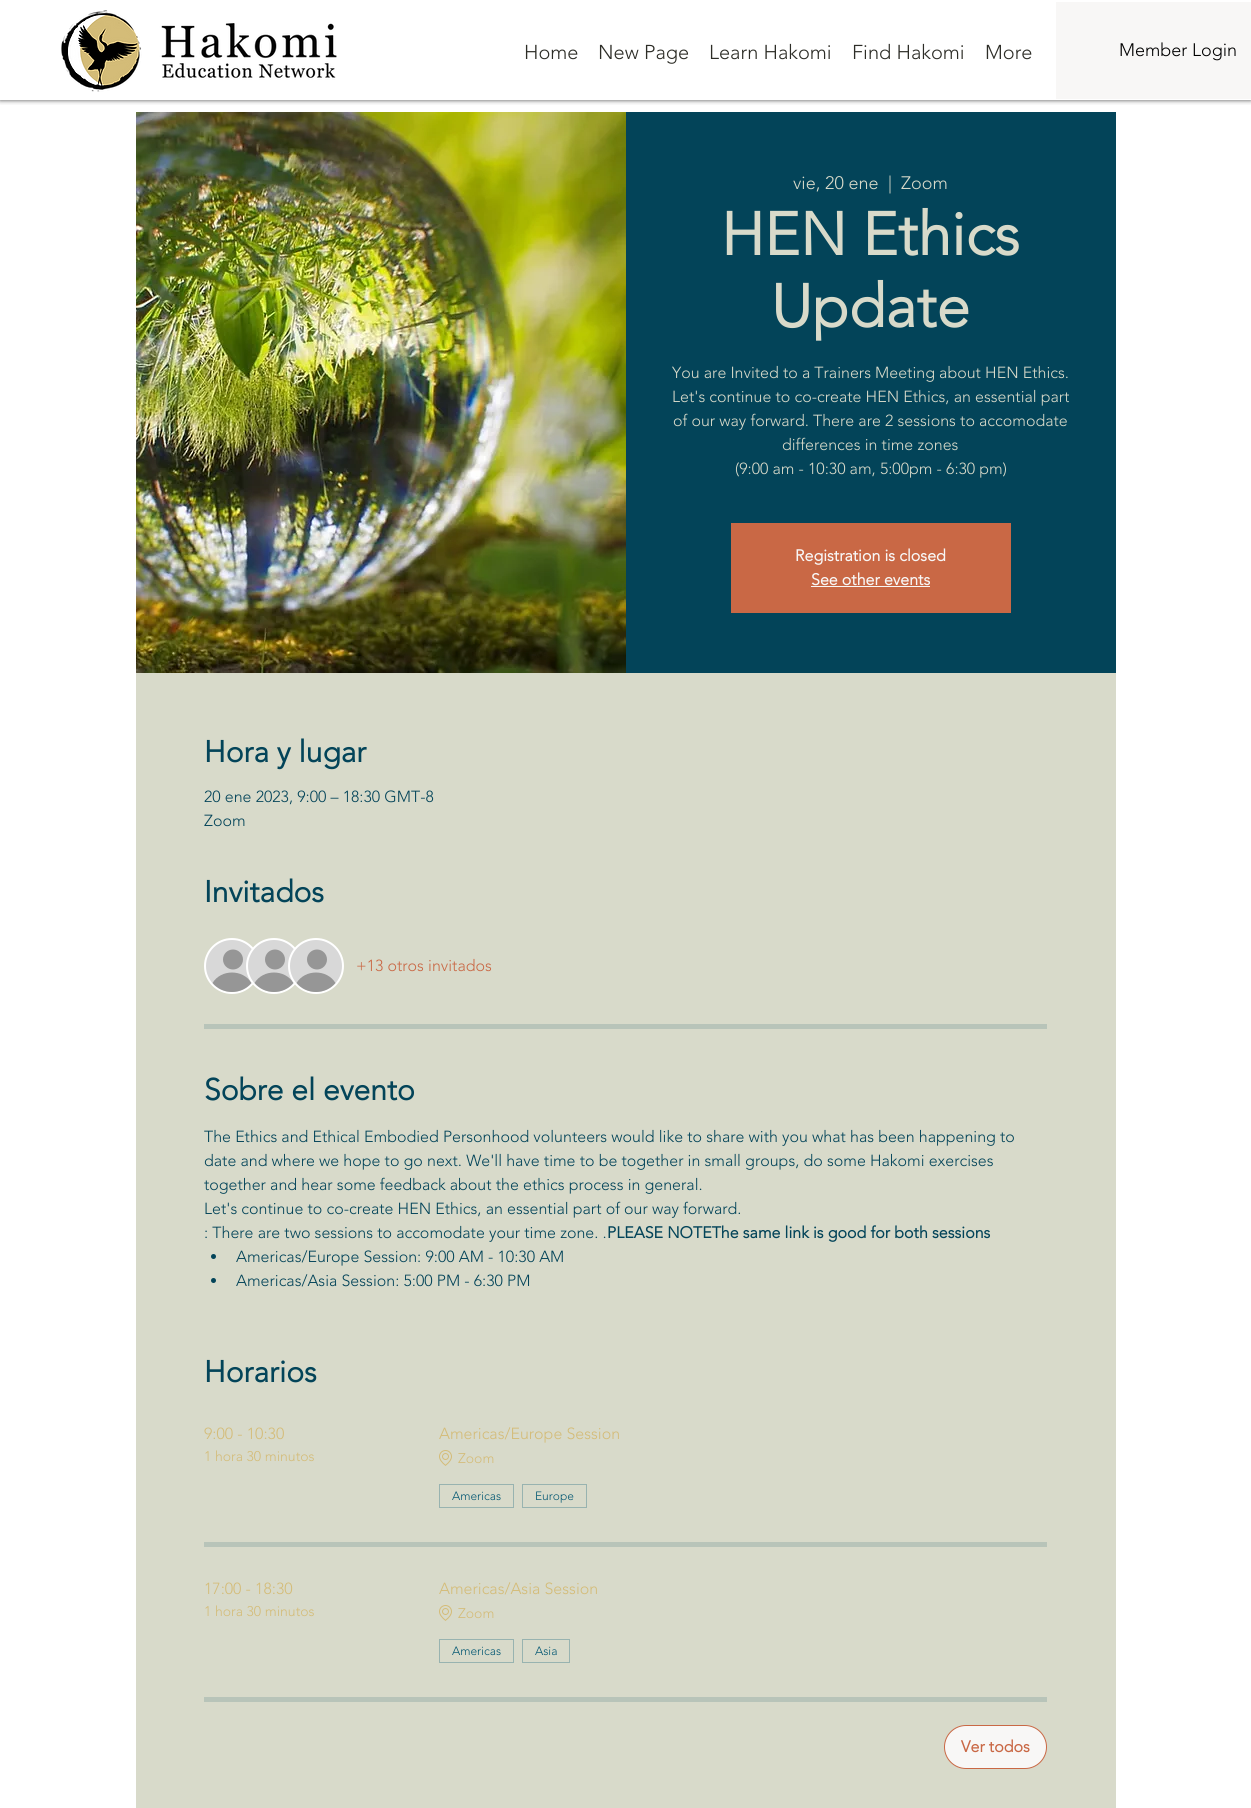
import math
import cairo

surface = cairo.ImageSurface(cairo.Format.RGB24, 1251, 1808)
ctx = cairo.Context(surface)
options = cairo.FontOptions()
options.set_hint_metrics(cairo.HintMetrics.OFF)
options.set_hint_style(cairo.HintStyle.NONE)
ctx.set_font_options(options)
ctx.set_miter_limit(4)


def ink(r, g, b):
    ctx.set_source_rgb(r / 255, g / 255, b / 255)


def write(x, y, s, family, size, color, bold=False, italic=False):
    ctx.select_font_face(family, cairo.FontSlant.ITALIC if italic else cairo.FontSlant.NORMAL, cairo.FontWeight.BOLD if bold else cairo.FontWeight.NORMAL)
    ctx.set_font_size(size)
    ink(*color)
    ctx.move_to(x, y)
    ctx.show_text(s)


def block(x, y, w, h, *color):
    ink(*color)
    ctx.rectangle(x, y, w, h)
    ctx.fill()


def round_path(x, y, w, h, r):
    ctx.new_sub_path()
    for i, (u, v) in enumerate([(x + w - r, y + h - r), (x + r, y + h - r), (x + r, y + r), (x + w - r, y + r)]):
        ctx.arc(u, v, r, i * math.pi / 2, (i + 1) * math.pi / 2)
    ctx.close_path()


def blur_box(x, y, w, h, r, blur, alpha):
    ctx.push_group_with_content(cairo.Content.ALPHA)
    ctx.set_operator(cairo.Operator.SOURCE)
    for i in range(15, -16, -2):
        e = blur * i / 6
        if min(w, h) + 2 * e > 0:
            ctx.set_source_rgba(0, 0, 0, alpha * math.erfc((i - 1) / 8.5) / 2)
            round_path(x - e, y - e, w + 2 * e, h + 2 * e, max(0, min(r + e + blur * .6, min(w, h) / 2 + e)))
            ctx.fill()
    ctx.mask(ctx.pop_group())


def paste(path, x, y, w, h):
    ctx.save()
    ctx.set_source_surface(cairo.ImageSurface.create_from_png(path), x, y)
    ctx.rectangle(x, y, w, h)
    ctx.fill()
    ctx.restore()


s1 = dict(family="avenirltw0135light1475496 Light", size=20, color=(45, 45, 39))
s2 = dict(family="avenirltw0135light1475496 Light", size=18, color=(0, 0, 0))
s3 = dict(family="avenirltw0135light1475496 Light", size=18, color=(216, 218, 202))
s4 = dict(family="avenirltw0135light1475496", size=60, color=(216, 218, 202), bold=True)
s5 = dict(family="avenirltw0135light1475496 Light", size=16, color=(216, 218, 202))
s6 = dict(family="avenirltw0135light1475496", size=16, color=(248, 247, 246), bold=True)
s7 = dict(family="avenirltw0135light1475496", size=30, color=(3, 68, 89), bold=True)
s8 = dict(family="avenirltw0135light1475496 Light", size=16, color=(3, 68, 89))
s9 = dict(family="avenirltw0135light1475496 Light", size=16, color=(201, 104, 69))
s10 = dict(family="avenirltw0135light1475496", size=16, color=(3, 68, 89), bold=True)
s11 = dict(family="avenirltw0135light1475496 Light", size=16, color=(212, 188, 120))
s12 = dict(family="avenirltw0135light1475496 Light", size=14, color=(212, 188, 120))
s13 = dict(family="avenirltw0135light1475496 Light", size=12, color=(3, 87, 114))
s14 = dict(family="avenirltw0135light1475496", size=16, color=(201, 104, 69), bold=True)

ink(255, 255, 255)
ctx.paint()
ctx.save()
ctx.rectangle(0, 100, 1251, 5)
ctx.clip()
ink(0, 0, 0)
blur_box(0, 0, 1251, 100, 0, 2.5, 0.7)
ctx.restore()
paste("pic1.png", 61, 10, 276, 82)
write(524, 59, "Home", **s1)
write(598, 59, "New Page", **s1)
write(709, 59, "Learn Hakomi", **s1)
write(852, 59, "Find Hakomi", **s1)
write(985, 59, "More", **s1)
block(1056, 2, 195, 97, 248, 247, 246)
write(1119, 56, "Member Login", **s2)
paste("pic2.png", 136, 112, 490, 561)
block(626, 112, 490, 561, 3, 68, 89)
write(793, 189, "vie, 20 ene", **s3)
write(888, 189, "|", **s3)
write(901, 189, "Zoom", **s3)
write(721, 255, "HEN Ethics", **s4)
write(771, 327, "Update", **s4)
write(672, 378, "You are Invited to a Trainers Meeting about HEN Ethics.", **s5)
write(672, 402, "Let's continue to co-create HEN Ethics, an essential part", **s5)
write(673, 426, "of our way forward. There are 2 sessions to accomodate", **s5)
write(782, 450, "differences in time zones", **s5)
write(735, 474, "(9:00 am - 10:30 am, 5:00pm - 6:30 pm)", **s5)
block(731, 523, 280, 90, 201, 104, 69)
write(795, 561, "Registration is closed", **s6)
write(811, 585, "See other events", **s6)
block(811, 586, 119, 1, 248, 247, 246)
block(136, 673, 980, 1135, 216, 218, 202)
write(204, 762, "Hora y lugar", **s7)
write(204, 802, "20 ene 2023, 9:00 – 18:30 GMT-8", **s8)
write(204, 826, "Zoom", **s8)
write(204, 902, "Invitados", **s7)
ink(216, 216, 216)
ctx.new_path()
ctx.arc(232, 966, 27, 0, 2 * math.pi)
ctx.fill_preserve()
ink(255, 255, 255)
ctx.stroke()
ink(150, 150, 150)
ctx.arc(233, 959.5, 10, 0, 2 * math.pi)
ctx.fill()
ctx.new_path()
ctx.move_to(251.5, 983)
ctx.curve_to(241.5, 995, 222.5, 995, 212.5, 983)
ctx.curve_to(221, 969, 243, 969, 251.5, 983)
ctx.close_path()
ctx.fill()
ink(216, 216, 216)
ctx.arc(274, 966, 27, 0, 2 * math.pi)
ctx.fill_preserve()
ink(255, 255, 255)
ctx.stroke()
ink(150, 150, 150)
ctx.arc(275, 959.5, 10, 0, 2 * math.pi)
ctx.fill()
ctx.new_path()
ctx.move_to(293.5, 983)
ctx.curve_to(283.5, 995, 264.5, 995, 254.5, 983)
ctx.curve_to(263, 969, 285, 969, 293.5, 983)
ctx.close_path()
ctx.fill()
ink(216, 216, 216)
ctx.arc(316, 966, 27, 0, 2 * math.pi)
ctx.fill_preserve()
ink(255, 255, 255)
ctx.stroke()
ink(150, 150, 150)
ctx.arc(317, 959.5, 10, 0, 2 * math.pi)
ctx.fill()
ctx.new_path()
ctx.move_to(335.5, 983)
ctx.curve_to(325.5, 995, 306.5, 995, 296.5, 983)
ctx.curve_to(305, 969, 327, 969, 335.5, 983)
ctx.close_path()
ctx.fill()
write(356, 971, "+13 otros invitados", **s9)
block(204, 1024, 843, 5, 184, 196, 185)
write(204, 1100, "Sobre el evento", **s7)
write(204, 1142, "The Ethics and Ethical Embodied Personhood volunteers would like to share with you what has been happening to", **s8)
write(204, 1166, "date and where we hope to go next. We'll have time to be together in small groups, do some Hakomi exercises", **s8)
write(204, 1190, "together and hear some feedback about the ethics process in general.", **s8)
write(204, 1214, "Let's continue to co-create HEN Ethics, an essential part of our way forward.", **s8)
write(204, 1238, ": There are two sessions to accomodate your time zone. .", **s8)
write(607, 1238, "PLEASE NOTEThe same link is good for both sessions", **s10)
ctx.new_path()
ctx.arc(213.5, 1256.5, 2.5, 0, 2 * math.pi)
ctx.fill()
write(236, 1262, "Americas/Europe Session: 9:00 AM - 10:30 AM", **s8)
ctx.new_path()
ctx.arc(213.5, 1280.5, 2.5, 0, 2 * math.pi)
ctx.fill()
write(236, 1286, "Americas/Asia Session: 5:00 PM - 6:30 PM", **s8)
write(204, 1382, "Horarios", **s7)
write(204, 1439, "9:00 - 10:30", **s11)
write(204, 1461, "1 hora 30 minutos", **s12)
write(439, 1439, "Americas/Europe Session", **s11)
paste("pic3.png", 439, 1450, 13, 16)
write(458, 1463, "Zoom", **s12)
ctx.rectangle(439.5, 1484.5, 74, 23)
ink(152, 179, 176)
ctx.set_line_width(1)
ctx.stroke()
write(452, 1500, "Americas", **s13)
ctx.rectangle(522.5, 1484.5, 64, 23)
ink(152, 179, 176)
ctx.stroke()
write(535, 1500, "Europe", **s13)
block(204, 1542, 843, 5, 184, 196, 185)
write(204, 1594, "17:00 - 18:30", **s11)
write(204, 1616, "1 hora 30 minutos", **s12)
write(439, 1594, "Americas/Asia Session", **s11)
paste("pic3.png", 439, 1605, 13, 16)
write(458, 1618, "Zoom", **s12)
ctx.rectangle(439.5, 1639.5, 74, 23)
ink(152, 179, 176)
ctx.stroke()
write(452, 1655, "Americas", **s13)
ctx.rectangle(522.5, 1639.5, 47, 23)
ink(152, 179, 176)
ctx.stroke()
write(535, 1655, "Asia", **s13)
block(204, 1697, 843, 5, 184, 196, 185)
ink(248, 247, 246)
round_path(944.5, 1725.5, 102, 43, 21.5)
ctx.fill_preserve()
ink(201, 104, 69)
ctx.stroke()
write(961, 1752, "Ver todos", **s14)
surface.write_to_png("screenshot.png")
